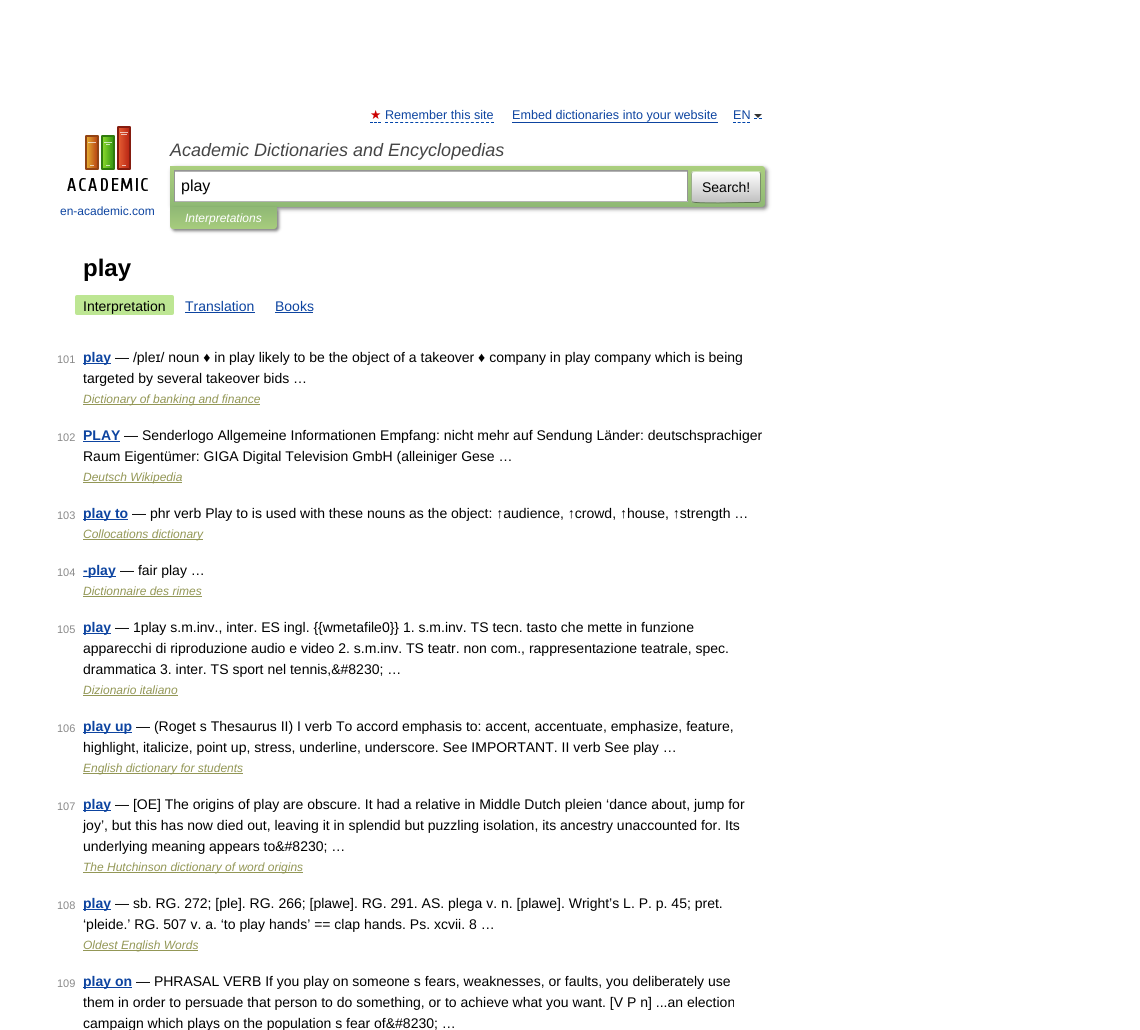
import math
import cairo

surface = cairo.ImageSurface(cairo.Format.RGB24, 1140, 1030)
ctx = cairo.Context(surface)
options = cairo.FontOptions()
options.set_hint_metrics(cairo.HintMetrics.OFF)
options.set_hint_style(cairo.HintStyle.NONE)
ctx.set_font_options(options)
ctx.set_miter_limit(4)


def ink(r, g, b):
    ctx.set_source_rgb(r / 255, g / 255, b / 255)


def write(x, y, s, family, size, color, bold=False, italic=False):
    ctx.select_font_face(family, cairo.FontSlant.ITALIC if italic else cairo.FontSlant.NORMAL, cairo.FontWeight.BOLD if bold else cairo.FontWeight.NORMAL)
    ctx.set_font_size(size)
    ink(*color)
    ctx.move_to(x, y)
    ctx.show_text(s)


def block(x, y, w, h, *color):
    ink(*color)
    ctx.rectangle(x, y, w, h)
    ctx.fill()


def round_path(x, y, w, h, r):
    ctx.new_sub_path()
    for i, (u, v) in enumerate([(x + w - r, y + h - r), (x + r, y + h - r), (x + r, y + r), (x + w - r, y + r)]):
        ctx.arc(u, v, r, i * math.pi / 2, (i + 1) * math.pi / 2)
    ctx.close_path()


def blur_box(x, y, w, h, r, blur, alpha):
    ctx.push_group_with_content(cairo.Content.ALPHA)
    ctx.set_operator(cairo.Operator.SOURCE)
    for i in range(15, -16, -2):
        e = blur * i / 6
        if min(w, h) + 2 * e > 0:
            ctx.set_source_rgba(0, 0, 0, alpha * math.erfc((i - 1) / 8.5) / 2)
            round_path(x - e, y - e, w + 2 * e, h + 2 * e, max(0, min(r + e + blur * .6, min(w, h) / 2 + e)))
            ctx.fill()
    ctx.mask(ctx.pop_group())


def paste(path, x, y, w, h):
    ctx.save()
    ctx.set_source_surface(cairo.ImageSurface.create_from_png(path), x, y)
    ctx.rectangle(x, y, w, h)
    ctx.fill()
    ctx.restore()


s1 = dict(family="DejaVu Sans", size=12.6, color=(204, 0, 0))
s2 = dict(family="Liberation Sans", size=12.6, color=(13, 68, 160))
s3 = dict(family="Liberation Sans", size=18, color=(69, 69, 69), italic=True)
s4 = dict(family="Liberation Sans", size=16, color=(0, 0, 0))
s5 = dict(family="Liberation Sans", size=14, color=(0, 0, 0))
s6 = dict(family="Liberation Sans", size=12, color=(13, 68, 160))
s7 = dict(family="Liberation Sans", size=12, color=(255, 255, 255), italic=True)
s8 = dict(family="Liberation Sans", size=24, color=(0, 0, 0), bold=True)
s9 = dict(family="Liberation Sans", size=14, color=(13, 68, 160))
s10 = dict(family="Liberation Sans", size=11, color=(137, 137, 137))
s11 = dict(family="Liberation Sans", size=14, color=(13, 68, 160), bold=True)
s12 = dict(family="Liberation Sans", size=12, color=(147, 151, 86), italic=True)

ink(255, 255, 255)
ctx.paint()
write(370, 119, "★", **s1)
ctx.new_path()
ctx.move_to(370, 122.5)
ctx.line_to(373, 122.5)
ctx.move_to(374, 122.5)
ctx.line_to(377, 122.5)
ctx.move_to(378, 122.5)
ctx.line_to(381, 122.5)
ink(0, 68, 170)
ctx.set_line_width(1)
ctx.stroke()
write(385, 119, "Remember this site", **s2)
ctx.new_path()
ctx.move_to(385, 122.5)
ctx.line_to(494, 122.5)
ink(0, 68, 170)
ctx.set_dash([3, 2.05])
ctx.stroke()
write(512, 119, "Embed dictionaries into your website", **s2)
block(512, 122, 206, 1, 13, 68, 160)
ctx.new_path()
ctx.move_to(733, 122.5)
ctx.line_to(750, 122.5)
ink(0, 68, 170)
ctx.set_dash([3, 1.67])
ctx.stroke()
ctx.new_path()
ctx.move_to(754, 118.5)
ctx.line_to(757, 118.5)
ctx.move_to(759, 118.5)
ctx.line_to(762, 118.5)
ctx.set_dash([])
ctx.stroke()
write(733, 119, "EN", **s2)
ink(51, 51, 51)
ctx.new_path()
ctx.move_to(754, 114)
ctx.line_to(762, 114)
ctx.line_to(758, 118)
ctx.close_path()
ctx.fill()
write(170, 156, "Academic Dictionaries and Encyclopedias", **s3)
ink(0, 0, 0)
blur_box(172, 168, 595, 41, 3, 2, 0.5)
gradient = cairo.LinearGradient(468, 166, 468, 207)
gradient.add_color_stop_rgba(0, 0.671, 0.812, 0.494, 1)
gradient.add_color_stop_rgba(1, 0.557, 0.722, 0.455, 1)
ctx.set_source(gradient)
ctx.new_path()
ctx.move_to(170, 166)
ctx.line_to(762, 166)
ctx.curve_to(763.5, 166, 765, 167.5, 765, 169)
ctx.line_to(765, 204)
ctx.curve_to(765, 205.5, 763.5, 207, 762, 207)
ctx.line_to(170, 207)
ctx.close_path()
ctx.fill()
block(175, 172, 512, 29, 255, 255, 255)
block(175, 171, 512, 1, 179, 179, 179)
block(174, 170, 514, 1, 148, 148, 148)
block(687, 170, 1, 32, 148, 148, 148)
block(174, 201, 514, 1, 180, 180, 180)
block(174, 170, 1, 32, 148, 148, 148)
write(181, 191, "play", **s4)
ctx.save()
round_path(691, 171, 70, 32, 3)
ctx.clip()
gradient = cairo.LinearGradient(726, 142, 726, 172)
gradient.add_color_stop_rgba(0, 1, 1, 1, 1)
gradient.add_color_stop_rgba(1, 0.757, 0.757, 0.757, 1)
ctx.set_source(gradient)
ctx.rectangle(691, 171, 70, 1)
ctx.fill()
gradient = cairo.LinearGradient(726, 172, 726, 202)
gradient.add_color_stop_rgba(0, 1, 1, 1, 1)
gradient.add_color_stop_rgba(1, 0.757, 0.757, 0.757, 1)
ctx.set_source(gradient)
ctx.rectangle(691, 172, 70, 30)
ctx.fill()
gradient = cairo.LinearGradient(726, 202, 726, 232)
gradient.add_color_stop_rgba(0, 1, 1, 1, 1)
gradient.add_color_stop_rgba(1, 0.757, 0.757, 0.757, 1)
ctx.set_source(gradient)
ctx.rectangle(691, 202, 70, 1)
ctx.fill()
ctx.restore()
ctx.new_path()
ctx.move_to(692, 172)
ctx.line_to(692.5, 172)
ctx.curve_to(694.5, 170.5, 741, 171.5, 747.5, 171.5)
ctx.line_to(758, 171.5)
ctx.line_to(760, 172)
ink(209, 228, 188)
ctx.stroke()
ctx.new_path()
ctx.move_to(760, 172)
ctx.curve_to(760, 172.5, 760.5, 173.5, 760.5, 174)
ctx.line_to(760.5, 200)
ctx.curve_to(760.5, 200.5, 760, 201.5, 760, 202)
ink(122, 142, 105)
ctx.stroke()
ctx.new_path()
ctx.move_to(760, 202)
ctx.line_to(758, 202.5)
ctx.line_to(747.5, 202.5)
ctx.curve_to(741, 202.5, 694.5, 203.5, 692.5, 202)
ctx.line_to(692, 202)
ink(93, 114, 80)
ctx.stroke()
ctx.new_path()
ctx.move_to(692, 202)
ctx.curve_to(692, 201.5, 691.5, 200.5, 691.5, 200)
ctx.line_to(691.5, 174)
ctx.curve_to(691.5, 173.5, 692, 172.5, 692, 172)
ink(154, 174, 137)
ctx.stroke()
write(702, 192, "Search!", **s5)
paste("pic1.png", 67, 126, 81, 65)
write(60, 215, "en-academic.com", **s6)
ink(0, 0, 0)
blur_box(172, 209, 107, 22, 3, 1.5, 0.5)
gradient = cairo.LinearGradient(224, 207, 224, 229)
gradient.add_color_stop_rgba(0, 0.561, 0.722, 0.459, 1)
gradient.add_color_stop_rgba(1, 0.655, 0.8, 0.49, 1)
ctx.set_source(gradient)
ctx.new_path()
ctx.move_to(170, 207)
ctx.line_to(277, 207)
ctx.line_to(277, 226)
ctx.curve_to(277, 227.5, 275.5, 229, 274, 229)
ctx.line_to(173, 229)
ctx.curve_to(171.5, 229, 170, 227.5, 170, 226)
ctx.close_path()
ctx.fill()
write(185, 222, "Interpretations", **s7)
write(83, 276, "play", **s8)
ink(189, 230, 147)
round_path(75, 295, 99, 20, 2)
ctx.fill()
write(83, 311, "Interpretation", **s5)
write(185, 311, "Translation", **s9)
block(185, 312, 70, 1, 13, 68, 160)
write(275, 311, "Books", **s9)
block(275, 312, 38, 1, 13, 68, 160)
write(57, 363, "101", **s10)
block(83, 363, 28, 1, 13, 68, 160)
write(83, 362, "play", **s11)
write(115, 362, "— /pleɪ/ noun ♦ in play likely to be the object of a takeover ♦ company in play company which is being", **s5)
write(83, 383, "targeted by several takeover bids …", **s5)
block(83, 404, 177, 1, 147, 151, 86)
write(83, 403, "Dictionary of banking and finance", **s12)
write(57, 441, "102", **s10)
write(83, 440, "PLAY", **s11)
block(83, 441, 37, 1, 13, 68, 160)
write(124, 440, "— Senderlogo Allgemeine Informationen Empfang: nicht mehr auf Sendung Länder: deutschsprachiger", **s5)
write(83, 461, "Raum Eigentümer: GIGA Digital Television GmbH (alleiniger Gese …", **s5)
block(83, 482, 99, 1, 147, 151, 86)
write(83, 481, "Deutsch Wikipedia", **s12)
write(57, 519, "103", **s10)
block(83, 519, 45, 1, 13, 68, 160)
write(83, 518, "play to", **s11)
write(132, 518, "— phr verb Play to is used with these nouns as the object: ↑audience, ↑crowd, ↑house, ↑strength …", **s5)
block(83, 539, 120, 1, 147, 151, 86)
write(83, 538, "Collocations dictionary", **s12)
write(57, 576, "104", **s10)
block(83, 576, 33, 1, 13, 68, 160)
write(83, 575, "-play", **s11)
write(120, 575, "— fair play …", **s5)
write(83, 595, "Dictionnaire des rimes", **s12)
block(83, 596, 119, 1, 147, 151, 86)
write(57, 633, "105", **s10)
block(83, 633, 28, 1, 13, 68, 160)
write(83, 632, "play", **s11)
write(115, 632, "— 1play s.m.inv., inter. ES ingl. {{wmetafile0}} 1. s.m.inv. TS tecn. tasto che mette in funzione", **s5)
write(83, 653, "apparecchi di riproduzione audio e video 2. s.m.inv. TS teatr. non com., rappresentazione teatrale, spec.", **s5)
write(83, 674, "drammatica 3. inter. TS sport nel tennis,&#8230; …", **s5)
write(83, 694, "Dizionario italiano", **s12)
block(83, 695, 95, 1, 147, 151, 86)
write(57, 732, "106", **s10)
block(83, 732, 49, 1, 13, 68, 160)
write(83, 731, "play up", **s11)
write(136, 731, "— (Roget s Thesaurus II) I verb To accord emphasis to: accent, accentuate, emphasize, feature,", **s5)
write(83, 752, "highlight, italicize, point up, stress, underline, underscore. See IMPORTANT. II verb See play …", **s5)
block(83, 773, 160, 1, 147, 151, 86)
write(83, 772, "English dictionary for students", **s12)
write(57, 810, "107", **s10)
block(83, 810, 28, 1, 13, 68, 160)
write(83, 809, "play", **s11)
write(115, 809, "— [OE] The origins of play are obscure. It had a relative in Middle Dutch pleien ‘dance about, jump for", **s5)
write(83, 830, "joy’, but this has now died out, leaving it in splendid but puzzling isolation, its ancestry unaccounted for. Its", **s5)
write(83, 851, "underlying meaning appears to&#8230; …", **s5)
block(83, 872, 220, 1, 147, 151, 86)
write(83, 871, "The Hutchinson dictionary of word origins", **s12)
write(57, 909, "108", **s10)
block(83, 909, 28, 1, 13, 68, 160)
write(83, 908, "play", **s11)
write(115, 908, "— sb. RG. 272; [ple]. RG. 266; [plawe]. RG. 291. AS. plega v. n. [plawe]. Wright’s L. P. p. 45; pret.", **s5)
write(83, 929, "‘pleide.’ RG. 507 v. a. ‘to play hands’ == clap hands. Ps. xcvii. 8 …", **s5)
block(83, 950, 115, 1, 147, 151, 86)
write(83, 949, "Oldest English Words", **s12)
write(57, 987, "109", **s10)
block(83, 987, 49, 1, 13, 68, 160)
write(83, 986, "play on", **s11)
write(136, 986, "— PHRASAL VERB If you play on someone s fears, weaknesses, or faults, you deliberately use", **s5)
write(83, 1007, "them in order to persuade that person to do something, or to achieve what you want. [V P n] ...an election", **s5)
write(83, 1028, "campaign which plays on the population s fear of&#8230; …", **s5)
surface.write_to_png("screenshot.png")
